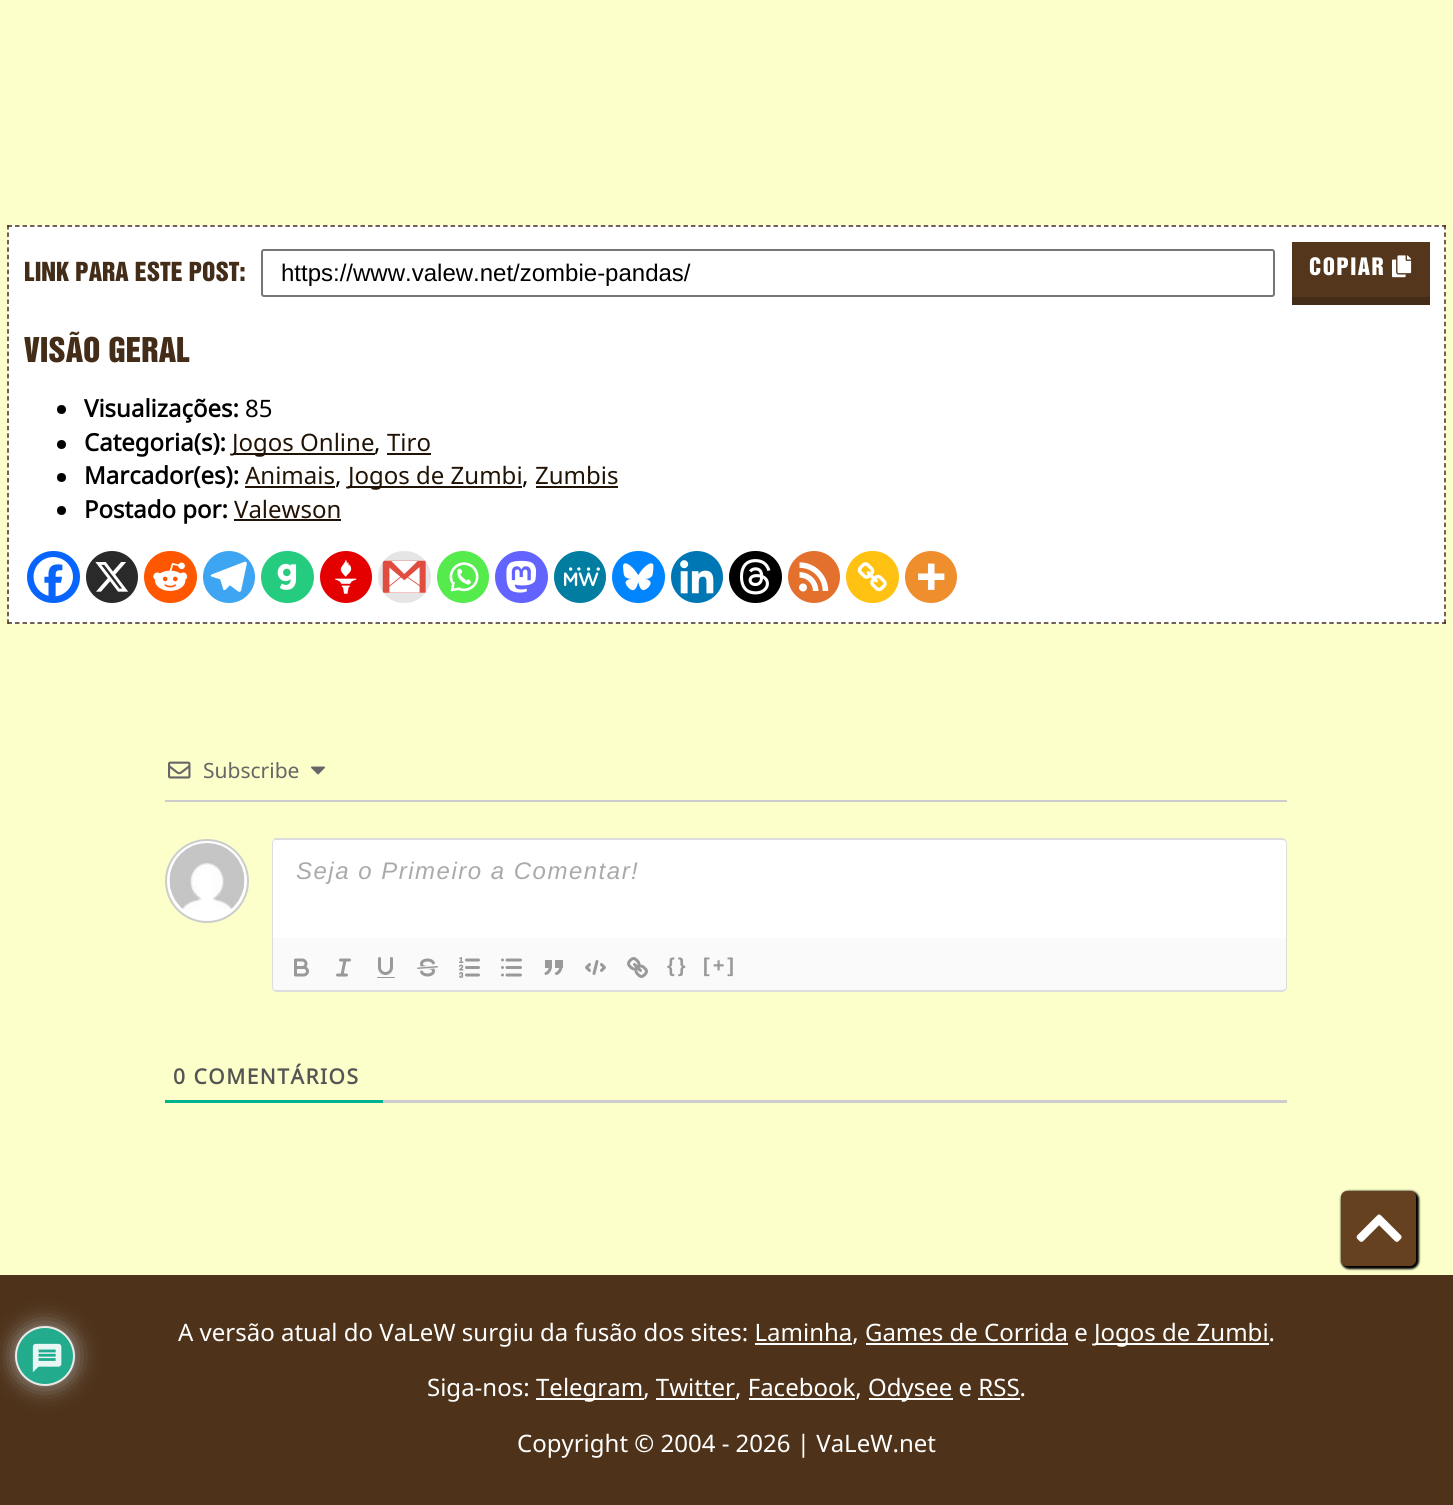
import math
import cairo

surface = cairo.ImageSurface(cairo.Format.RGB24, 1453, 1505)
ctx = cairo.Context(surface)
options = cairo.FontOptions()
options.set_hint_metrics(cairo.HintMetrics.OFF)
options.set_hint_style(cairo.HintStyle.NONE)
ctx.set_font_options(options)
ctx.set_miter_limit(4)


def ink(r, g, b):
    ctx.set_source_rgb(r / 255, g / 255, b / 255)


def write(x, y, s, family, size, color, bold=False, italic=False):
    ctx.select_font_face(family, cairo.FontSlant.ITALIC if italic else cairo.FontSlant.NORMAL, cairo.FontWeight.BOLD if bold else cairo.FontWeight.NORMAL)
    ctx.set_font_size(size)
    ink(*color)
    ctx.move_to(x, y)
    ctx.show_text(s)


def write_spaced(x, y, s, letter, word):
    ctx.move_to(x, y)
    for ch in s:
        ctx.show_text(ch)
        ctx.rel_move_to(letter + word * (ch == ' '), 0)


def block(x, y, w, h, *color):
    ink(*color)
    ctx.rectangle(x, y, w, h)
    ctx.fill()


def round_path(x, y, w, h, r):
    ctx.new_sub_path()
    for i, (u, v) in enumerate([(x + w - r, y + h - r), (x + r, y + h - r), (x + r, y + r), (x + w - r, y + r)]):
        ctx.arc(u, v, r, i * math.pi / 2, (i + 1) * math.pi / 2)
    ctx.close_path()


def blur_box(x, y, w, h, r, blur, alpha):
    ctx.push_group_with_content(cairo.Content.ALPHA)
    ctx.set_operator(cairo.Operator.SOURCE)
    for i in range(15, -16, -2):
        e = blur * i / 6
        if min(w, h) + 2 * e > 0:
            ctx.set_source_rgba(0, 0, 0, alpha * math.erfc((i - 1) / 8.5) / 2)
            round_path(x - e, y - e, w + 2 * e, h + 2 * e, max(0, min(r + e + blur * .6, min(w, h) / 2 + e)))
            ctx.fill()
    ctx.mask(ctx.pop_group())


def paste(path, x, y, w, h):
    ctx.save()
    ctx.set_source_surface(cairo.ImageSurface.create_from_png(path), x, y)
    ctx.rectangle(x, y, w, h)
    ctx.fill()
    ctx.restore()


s1 = dict(family="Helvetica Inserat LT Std", size=24, color=(68, 45, 24))
s2 = dict(family="Liberation Sans", size=24, color=(0, 0, 0))
s3 = dict(family="Helvetica Inserat LT Std", size=31.25, color=(68, 45, 24))
s4 = dict(family="Noto Sans", size=24, color=(0, 0, 0), bold=True)
s5 = dict(family="Noto Sans", size=24, color=(0, 0, 0))
s6 = dict(family="Noto Sans", size=24, color=(33, 19, 5))
s7 = dict(family="Noto Sans", size=21, color=(102, 102, 102))
s8 = dict(family="Noto Sans", size=24, color=(255, 255, 255))

ink(78, 51, 26)
ctx.paint()
block(0, 0, 1453, 1275, 252, 255, 201)
block(8, 225, 1438, 399, 255, 255, 255)
ctx.new_path()
ctx.move_to(7.5, 226)
ctx.line_to(1446, 226)
ink(68, 45, 24)
ctx.set_line_width(1.5)
ctx.set_dash([4.5, 3.01])
ctx.stroke()
ctx.new_path()
ctx.move_to(1445, 225)
ctx.line_to(1445, 624)
ctx.set_dash([4.5, 2.94])
ctx.stroke()
ctx.new_path()
ctx.move_to(7.5, 623)
ctx.line_to(1446, 623)
ctx.set_dash([4.5, 3.01])
ctx.stroke()
ctx.new_path()
ctx.move_to(8, 225)
ctx.line_to(8, 624)
ctx.set_dash([4.5, 2.94])
ctx.stroke()
write(24, 281, "LINK PARA ESTE POST:", **s1)
round_path(262, 250, 1012, 46, 2)
ink(118, 118, 118)
ctx.set_line_width(2)
ctx.set_dash([])
ctx.stroke()
write(281, 281, "https://www.valew.net/zombie-pandas/", **s2)
block(1292, 242, 138, 55, 83, 54, 28)
block(1292, 297, 138, 8, 68, 45, 24)
ctx.select_font_face("Helvetica Inserat LT Std")
ctx.set_font_size(22)
ink(255, 255, 255)
write_spaced(1309, 275, "COPIAR", 1.5, 0)
paste("pic1.png", 1392, 255, 20, 23)
write(24, 362, "VISÃO GERAL", **s3)
ink(0, 0, 0)
ctx.new_path()
ctx.arc(61.5, 409.5, 4.5, 0, 2 * math.pi)
ctx.fill()
write(84, 417, "Visualizações:", **s4)
write(245, 417, "85", **s5)
ctx.new_path()
ctx.arc(61.5, 444.5, 4.5, 0, 2 * math.pi)
ctx.fill()
write(84, 451, "Categoria(s):", **s4)
block(233, 453, 142, 2, 33, 19, 5)
write(232, 451, "Jogos Online", **s6)
write(387, 451, "Tiro", **s6)
block(387, 453, 44, 2, 33, 19, 5)
write(374, 451, ",", **s5)
ctx.new_path()
ctx.arc(61.5, 477.5, 4.5, 0, 2 * math.pi)
ctx.fill()
write(84, 484, "Marcador(es):", **s4)
write(245, 484, "Animais", **s6)
block(245, 486, 90, 2, 33, 19, 5)
block(348, 486, 174, 2, 33, 19, 5)
write(348, 484, "Jogos de Zumbi", **s6)
write(535, 484, "Zumbis", **s6)
block(536, 486, 82, 2, 33, 19, 5)
write(335, 484, ",", **s5)
write(522, 484, ",", **s5)
ctx.new_path()
ctx.arc(61.5, 510.5, 4.5, 0, 2 * math.pi)
ctx.fill()
write(84, 518, "Postado por:", **s4)
write(234, 518, "Valewson", **s6)
block(234, 519, 107, 2, 33, 19, 5)
ink(7, 101, 254)
round_path(27, 551, 53, 52, 26)
ctx.fill()
paste("pic2.png", 33, 557, 40, 40)
ink(42, 42, 42)
ctx.arc(112, 577, 26, 0, 2 * math.pi)
ctx.fill()
paste("pic3.png", 95, 562, 33, 30)
ink(255, 87, 0)
round_path(144, 551, 53, 52, 26)
ctx.fill()
paste("pic4.png", 153, 562, 35, 29)
ink(61, 165, 241)
ctx.arc(229, 577, 26, 0, 2 * math.pi)
ctx.fill()
paste("pic5.png", 210, 561, 37, 31)
ink(37, 204, 128)
round_path(261, 551, 53, 52, 26)
ctx.fill()
paste("pic6.png", 277, 563, 20, 27)
ink(229, 0, 0)
ctx.arc(346, 577, 26, 0, 2 * math.pi)
ctx.fill()
paste("pic7.png", 335, 559, 22, 35)
ink(229, 229, 229)
round_path(378, 551, 53, 52, 26)
ctx.fill()
paste("pic8.png", 382, 560, 44, 33)
ink(85, 235, 76)
ctx.arc(463, 577, 26, 0, 2 * math.pi)
ctx.fill()
paste("pic9.png", 449, 562, 30, 30)
ink(99, 100, 255)
round_path(495, 551, 53, 52, 26)
ctx.fill()
paste("pic10.png", 506, 560, 31, 33)
ink(0, 125, 161)
ctx.arc(580, 577, 26, 0, 2 * math.pi)
ctx.fill()
paste("pic11.png", 564, 567, 36, 20)
ink(0, 133, 255)
round_path(612, 551, 53, 52, 26)
ctx.fill()
paste("pic12.png", 623, 563, 31, 28)
ink(0, 119, 181)
ctx.arc(697, 577, 26, 0, 2 * math.pi)
ctx.fill()
paste("pic13.png", 680, 560, 34, 34)
ink(0, 0, 0)
round_path(729, 551, 53, 52, 26)
ctx.fill()
paste("pic14.png", 739, 559, 32, 36)
ink(227, 112, 45)
ctx.arc(814, 577, 26, 0, 2 * math.pi)
ctx.fill()
paste("pic15.png", 799, 562, 30, 30)
ink(255, 193, 18)
round_path(846, 551, 53, 52, 26)
ctx.fill()
paste("pic16.png", 857, 562, 30, 30)
ink(238, 142, 45)
ctx.arc(931, 577, 26, 0, 2 * math.pi)
ctx.fill()
paste("pic17.png", 918, 563, 27, 27)
block(165, 800, 1122, 2, 204, 204, 204)
paste("pic18.png", 168, 761, 23, 18)
write(203, 778, "Subscribe", **s7)
paste("pic19.png", 311, 766, 14, 9)
ink(255, 255, 255)
ctx.arc(207, 881, 41, 0, 2 * math.pi)
ctx.fill_preserve()
ink(204, 204, 204)
ctx.stroke()
paste("pic20.png", 169, 843, 76, 67)
ink(255, 255, 255)
ctx.new_path()
ctx.move_to(277, 839)
ctx.line_to(1282, 839)
ctx.curve_to(1285, 839, 1287, 841, 1287, 844)
ctx.line_to(1287, 938)
ctx.line_to(272, 938)
ctx.line_to(272, 844)
ctx.curve_to(272, 841, 274, 839, 277, 839)
ctx.close_path()
ctx.fill()
ink(221, 221, 221)
ctx.set_fill_rule(cairo.FillRule.EVEN_ODD)
ctx.new_path()
ctx.move_to(276, 838)
ctx.line_to(1282, 838)
ctx.curve_to(1285, 838, 1287, 841, 1287, 843)
ctx.line_to(1287, 938)
ctx.line_to(272, 938)
ctx.line_to(272, 843)
ctx.curve_to(272, 841, 274, 838, 276, 838)
ctx.close_path()
ctx.move_to(276, 840)
ctx.line_to(1282, 840)
ctx.curve_to(1284, 840, 1286, 841, 1286, 843)
ctx.line_to(1286, 938)
ctx.line_to(273, 938)
ctx.line_to(273, 843)
ctx.curve_to(273, 841, 274, 840, 276, 840)
ctx.close_path()
ctx.fill()
ctx.select_font_face("Liberation Sans", cairo.FontSlant.ITALIC)
ctx.set_font_size(24)
ink(170, 170, 170)
write_spaced(296, 879, "Seja o Primeiro a Comentar!", 1.5, 0)
ink(250, 250, 250)
ctx.new_path()
ctx.move_to(272, 938)
ctx.line_to(1287, 938)
ctx.line_to(1287, 987)
ctx.curve_to(1287, 990, 1285, 992, 1282, 992)
ctx.line_to(277, 992)
ctx.curve_to(274, 992, 272, 990, 272, 987)
ctx.close_path()
ctx.fill()
ink(221, 221, 221)
ctx.new_path()
ctx.move_to(272, 938)
ctx.line_to(1287, 938)
ctx.line_to(1287, 987)
ctx.curve_to(1287, 989, 1285, 992, 1282, 992)
ctx.line_to(276, 992)
ctx.curve_to(274, 992, 272, 989, 272, 987)
ctx.close_path()
ctx.move_to(273, 938)
ctx.line_to(1286, 938)
ctx.line_to(1286, 987)
ctx.curve_to(1286, 989, 1284, 990, 1282, 990)
ctx.line_to(276, 990)
ctx.curve_to(274, 990, 273, 989, 273, 987)
ctx.close_path()
ctx.fill()
paste("pic21.png", 294, 958, 15, 19)
ctx.new_path()
ctx.move_to(340.5, 960)
ctx.line_to(349.5, 960)
ctx.move_to(337.5, 975)
ctx.line_to(346.5, 975)
ctx.move_to(342, 975)
ctx.line_to(345, 960)
ink(153, 153, 153)
ctx.set_line_width(3)
ctx.set_line_cap(cairo.LineCap.ROUND)
ctx.set_line_join(cairo.LineJoin.ROUND)
ctx.stroke()
paste("pic22.png", 377, 957, 18, 21)
paste("pic23.png", 417, 958, 21, 19)
paste("pic24.png", 459, 957, 21, 21)
paste("pic25.png", 501, 958, 21, 19)
paste("pic26.png", 544, 960, 19, 15)
ctx.new_path()
ctx.move_to(589.5, 964.5)
ctx.line_to(586.5, 967.5)
ctx.line_to(589.5, 970.5)
ctx.move_to(601.5, 964.5)
ctx.line_to(604.5, 967.5)
ctx.line_to(601.5, 970.5)
ctx.move_to(597, 961.5)
ctx.line_to(594, 973.5)
ctx.stroke()
paste("pic27.png", 627, 957, 21, 21)
ctx.select_font_face("Liberation Sans", cairo.FontSlant.NORMAL, cairo.FontWeight.BOLD)
ctx.set_font_size(20)
write_spaced(667, 972, "{}", 3, 0)
write_spaced(703, 972, "[+]", 3, 0)
block(383, 1100, 904, 3, 204, 204, 204)
block(165, 1100, 218, 3, 0, 179, 143)
ctx.select_font_face("Noto Sans", cairo.FontSlant.NORMAL, cairo.FontWeight.BOLD)
ctx.set_font_size(21)
ink(85, 85, 85)
write_spaced(173, 1084, "0 COMENTÁRIOS", 1.5, 0)
ink(0, 0, 0)
blur_box(1341, 1191, 78, 78, 8, 1, 1)
ink(101, 65, 32)
round_path(1341, 1191, 75, 75, 6)
ctx.fill()
paste("pic28.png", 1356, 1214, 46, 28)
ink(161, 158, 156)
blur_box(15, 1326, 60, 60, 30, 11, 1)
ink(34, 172, 141)
ctx.arc(45, 1356, 29, 0, 2 * math.pi)
ctx.fill_preserve()
ink(237, 235, 232)
ctx.set_line_width(2)
ctx.set_line_cap(cairo.LineCap.BUTT)
ctx.set_line_join(cairo.LineJoin.MITER)
ctx.stroke()
paste("pic29.png", 32, 1343, 30, 30)
write(178, 1341, "A versão atual do VaLeW surgiu da fusão dos sites: Laminha, Games de Corrida e", **s8)
block(1095, 1343, 174, 2, 255, 255, 255)
write(1094, 1341, "Jogos de Zumbi.", **s8)
block(755, 1343, 97, 2, 255, 255, 255)
block(866, 1343, 202, 2, 255, 255, 255)
write(427, 1396, "Siga-nos:", **s8)
block(536, 1398, 108, 2, 255, 255, 255)
write(536, 1396, "Telegram, Twitter, Facebook,", **s8)
block(869, 1398, 84, 2, 255, 255, 255)
write(868, 1396, "Odysee e RSS.", **s8)
block(656, 1398, 79, 2, 255, 255, 255)
block(749, 1398, 106, 2, 255, 255, 255)
block(978, 1398, 42, 2, 255, 255, 255)
write(517, 1452, "Copyright © 2004 - 2026 | VaLeW.net", **s8)
surface.write_to_png("screenshot.png")
